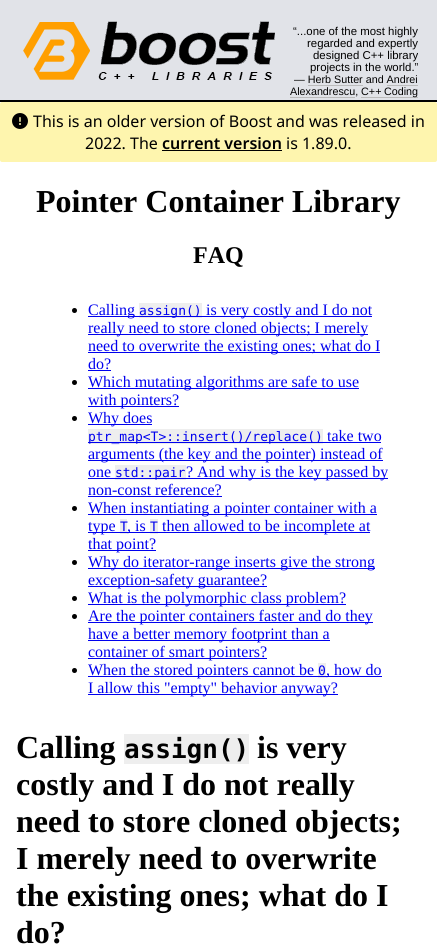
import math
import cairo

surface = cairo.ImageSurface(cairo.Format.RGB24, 437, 952)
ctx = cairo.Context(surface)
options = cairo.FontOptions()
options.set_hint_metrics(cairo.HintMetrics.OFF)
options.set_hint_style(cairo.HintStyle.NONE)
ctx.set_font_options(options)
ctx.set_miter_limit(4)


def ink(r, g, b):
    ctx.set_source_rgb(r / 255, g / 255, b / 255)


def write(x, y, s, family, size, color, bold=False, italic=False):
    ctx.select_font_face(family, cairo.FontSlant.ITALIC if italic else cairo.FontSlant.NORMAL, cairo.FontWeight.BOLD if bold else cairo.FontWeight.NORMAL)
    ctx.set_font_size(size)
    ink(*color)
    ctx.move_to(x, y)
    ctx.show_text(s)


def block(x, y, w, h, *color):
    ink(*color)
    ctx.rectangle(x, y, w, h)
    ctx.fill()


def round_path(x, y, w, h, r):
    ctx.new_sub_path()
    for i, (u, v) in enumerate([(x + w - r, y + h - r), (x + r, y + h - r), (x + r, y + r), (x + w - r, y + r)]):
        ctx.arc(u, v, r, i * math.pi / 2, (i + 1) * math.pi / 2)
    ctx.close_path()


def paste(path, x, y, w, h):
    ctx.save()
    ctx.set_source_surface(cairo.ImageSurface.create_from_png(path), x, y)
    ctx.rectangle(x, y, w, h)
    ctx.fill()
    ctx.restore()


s1 = dict(family="Liberation Sans", size=11.4, color=(0, 0, 0))
s2 = dict(family="Liberation Sans", size=10.75, color=(0, 0, 0))
s3 = dict(family="Noto Sans", size=16, color=(0, 0, 0))
s4 = dict(family="Noto Sans SemiBold", size=16, color=(0, 0, 0))
s5 = dict(family="Liberation Serif", size=32, color=(0, 0, 0), bold=True)
s6 = dict(family="Liberation Serif", size=24, color=(0, 0, 0), bold=True)
s7 = dict(family="Liberation Serif", size=16, color=(0, 0, 238))
s8 = dict(family="DejaVu Sans Mono", size=13, color=(0, 0, 238))
s9 = dict(family="DejaVu Sans Mono", size=26, color=(0, 0, 0), bold=True)

ink(255, 255, 255)
ctx.paint()
block(0, 0, 437, 100, 225, 227, 232)
block(0, 100, 437, 2, 0, 0, 0)
paste("pic1.png", 23, 21, 252, 59)
write(293, 35, "“...one of the most highly", **s1)
write(307, 47, "regarded and expertly", **s1)
write(313, 59, "designed C++ library", **s1)
write(310, 71, "projects in the world.”", **s1)
write(294, 83, "— Herb Sutter and Andrei", **s2)
block(308, 85, 55, 1, 187, 187, 187)
write(290, 95, "Alexandrescu, C++", **s2)
block(387, 85, 31, 1, 187, 187, 187)
block(290, 97, 65, 1, 187, 187, 187)
block(361, 97, 57, 1, 187, 187, 187)
write(384, 95, "Coding", **s2)
ink(254, 245, 174)
round_path(0, 102, 437, 60, 2)
ctx.fill()
paste("pic2.png", 12, 113, 16, 16)
write(33, 127, "This is an older version of Boost and was released in", **s3)
write(85, 149, "2022. The", **s3)
write(162, 149, "current version", **s4)
block(162, 150, 120, 1, 0, 0, 0)
write(286, 149, "is 1.89.0.", **s3)
write(36, 212, "Pointer Container Library", **s5)
write(193, 263, "FAQ", **s6)
ctx.new_path()
ctx.arc(74.5, 310.5, 2.5, 0, 2 * math.pi)
ctx.fill()
block(88, 316, 51, 1, 0, 0, 238)
write(88, 315, "Calling", **s7)
block(139, 303, 63, 15, 238, 238, 238)
block(139, 316, 233, 1, 0, 0, 238)
write(139, 315, "assign()", **s8)
write(206, 315, "is very costly and I do not", **s7)
block(88, 334, 280, 1, 0, 0, 238)
write(88, 333, "really need to store cloned objects; I merely", **s7)
block(88, 352, 292, 1, 0, 0, 238)
write(88, 351, "need to overwrite the existing ones; what do I", **s7)
write(88, 369, "do?", **s7)
block(88, 370, 23, 1, 0, 0, 238)
ink(0, 0, 0)
ctx.new_path()
ctx.arc(74.5, 382.5, 2.5, 0, 2 * math.pi)
ctx.fill()
block(88, 388, 271, 1, 0, 0, 238)
write(88, 387, "Which mutating algorithms are safe to use", **s7)
block(88, 406, 91, 1, 0, 0, 238)
write(88, 405, "with pointers?", **s7)
ink(0, 0, 0)
ctx.new_path()
ctx.arc(74.5, 418.5, 2.5, 0, 2 * math.pi)
ctx.fill()
block(88, 424, 64, 1, 0, 0, 238)
write(88, 423, "Why does", **s7)
block(88, 429, 235, 15, 238, 238, 238)
block(88, 442, 293, 1, 0, 0, 238)
write(88, 441, "ptr_map<T>::insert()/replace()", **s8)
write(327, 441, "take two", **s7)
block(88, 460, 295, 1, 0, 0, 238)
write(88, 459, "arguments (the key and the pointer) instead of", **s7)
write(88, 477, "one", **s7)
block(88, 478, 27, 1, 0, 0, 238)
block(115, 465, 71, 15, 238, 238, 238)
block(115, 478, 273, 1, 0, 0, 238)
write(115, 477, "std::pair", **s8)
write(186, 477, "? And why is the key passed by", **s7)
write(88, 495, "non-const reference?", **s7)
block(88, 496, 134, 1, 0, 0, 238)
ink(0, 0, 0)
ctx.new_path()
ctx.arc(74.5, 508.5, 2.5, 0, 2 * math.pi)
ctx.fill()
block(88, 514, 289, 1, 0, 0, 238)
write(88, 513, "When instantiating a pointer container with a", **s7)
block(88, 532, 32, 1, 0, 0, 238)
write(88, 531, "type", **s7)
block(120, 519, 7, 15, 238, 238, 238)
write(120, 531, "T", **s8)
block(120, 532, 30, 1, 0, 0, 238)
write(127, 531, ", is", **s7)
block(150, 519, 8, 15, 238, 238, 238)
write(150, 531, "T", **s8)
block(150, 532, 220, 1, 0, 0, 238)
write(162, 531, "then allowed to be incomplete at", **s7)
block(88, 550, 68, 1, 0, 0, 238)
write(88, 549, "that point?", **s7)
ink(0, 0, 0)
ctx.new_path()
ctx.arc(74.5, 562.5, 2.5, 0, 2 * math.pi)
ctx.fill()
block(88, 568, 287, 1, 0, 0, 238)
write(88, 567, "Why do iterator-range inserts give the strong", **s7)
block(88, 586, 179, 1, 0, 0, 238)
write(88, 585, "exception-safety guarantee?", **s7)
ink(0, 0, 0)
ctx.new_path()
ctx.arc(74.5, 598.5, 2.5, 0, 2 * math.pi)
ctx.fill()
block(88, 604, 258, 1, 0, 0, 238)
write(88, 603, "What is the polymorphic class problem?", **s7)
ink(0, 0, 0)
ctx.new_path()
ctx.arc(74.5, 616.5, 2.5, 0, 2 * math.pi)
ctx.fill()
block(88, 622, 285, 1, 0, 0, 238)
write(88, 621, "Are the pointer containers faster and do they", **s7)
block(88, 640, 242, 1, 0, 0, 238)
write(88, 639, "have a better memory footprint than a", **s7)
block(88, 658, 179, 1, 0, 0, 238)
write(88, 657, "container of smart pointers?", **s7)
ink(0, 0, 0)
ctx.new_path()
ctx.arc(74.5, 670.5, 2.5, 0, 2 * math.pi)
ctx.fill()
block(88, 676, 230, 1, 0, 0, 238)
write(88, 675, "When the stored pointers cannot be", **s7)
block(318, 663, 8, 15, 238, 238, 238)
write(318, 675, "0", **s8)
block(318, 676, 64, 1, 0, 0, 238)
write(326, 675, ", how do", **s7)
block(88, 694, 250, 1, 0, 0, 238)
write(88, 693, "I allow this \"empty\" behavior anyway?", **s7)
write(16, 758, "Calling", **s5)
block(124, 734, 125, 30, 238, 238, 238)
write(124, 758, "assign()", **s9)
write(257, 758, "is very", **s5)
write(16, 795, "costly and I do not really", **s5)
write(16, 832, "need to store cloned objects;", **s5)
write(16, 869, "I merely need to overwrite", **s5)
write(16, 906, "the existing ones; what do I", **s5)
write(16, 943, "do?", **s5)
surface.write_to_png("screenshot.png")
